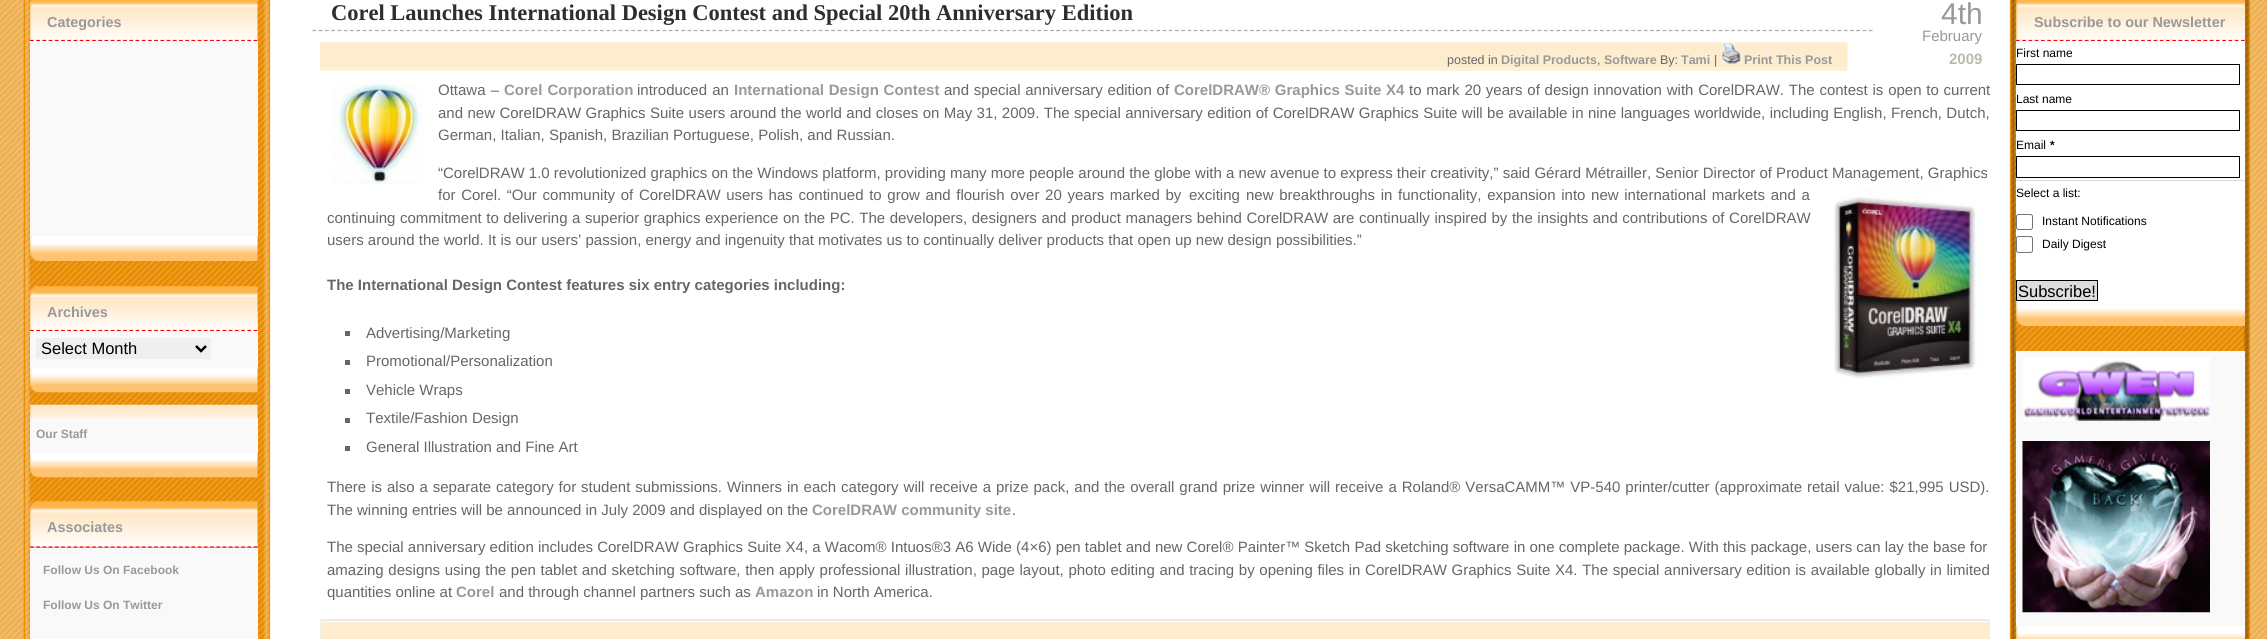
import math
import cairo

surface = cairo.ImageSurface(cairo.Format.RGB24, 2267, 639)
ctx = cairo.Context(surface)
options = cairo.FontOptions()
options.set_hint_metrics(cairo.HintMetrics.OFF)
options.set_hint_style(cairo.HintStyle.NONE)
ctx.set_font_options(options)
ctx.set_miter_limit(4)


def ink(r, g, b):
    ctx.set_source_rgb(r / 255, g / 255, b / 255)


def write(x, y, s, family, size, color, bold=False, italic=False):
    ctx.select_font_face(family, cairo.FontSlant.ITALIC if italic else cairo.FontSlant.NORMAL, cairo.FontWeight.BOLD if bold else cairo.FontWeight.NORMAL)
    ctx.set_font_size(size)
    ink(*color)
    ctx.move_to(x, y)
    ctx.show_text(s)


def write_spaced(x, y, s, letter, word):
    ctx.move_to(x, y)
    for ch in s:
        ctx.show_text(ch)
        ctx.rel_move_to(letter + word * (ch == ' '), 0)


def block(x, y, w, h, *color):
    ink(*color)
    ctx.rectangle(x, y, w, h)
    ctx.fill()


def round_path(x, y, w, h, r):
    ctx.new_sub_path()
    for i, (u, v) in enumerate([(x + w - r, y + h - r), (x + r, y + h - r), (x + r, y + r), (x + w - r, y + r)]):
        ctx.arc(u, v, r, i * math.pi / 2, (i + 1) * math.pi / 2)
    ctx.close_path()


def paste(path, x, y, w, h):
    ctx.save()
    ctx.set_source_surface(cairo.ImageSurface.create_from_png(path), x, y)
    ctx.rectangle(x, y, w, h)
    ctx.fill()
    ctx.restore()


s1 = dict(family="Liberation Sans", size=14.4, color=(153, 153, 153), bold=True)
s2 = dict(family="Liberation Sans", size=16.5, color=(0, 0, 0))
s3 = dict(family="Liberation Sans", size=12, color=(153, 153, 153), bold=True)
s4 = dict(family="Liberation Serif", size=22.5, color=(46, 46, 46), bold=True)
s5 = dict(family="Liberation Sans", size=30, color=(153, 153, 153))
s6 = dict(family="Liberation Sans", size=15, color=(153, 153, 153))
s7 = dict(family="Liberation Sans", size=15, color=(187, 187, 170), bold=True)
s8 = dict(family="Liberation Sans", size=12.5, color=(102, 102, 102))
s9 = dict(family="Liberation Sans", size=12.5, color=(153, 153, 153), bold=True)
s10 = dict(family="Liberation Sans", size=15, color=(102, 102, 102))
s11 = dict(family="Liberation Sans", size=15, color=(102, 102, 102), bold=True)
s12 = dict(family="Liberation Sans", size=15, color=(153, 153, 153), bold=True)
s13 = dict(family="Liberation Sans", size=12, color=(0, 0, 0))
s14 = dict(family="Liberation Sans", size=12, color=(0, 0, 0), bold=True)

ink(255, 255, 255)
ctx.paint()
paste("pic1.png", 0, 0, 271, 639)
paste("pic2.png", 2009, 0, 258, 639)
paste("pic3.png", 30, 236, 228, 25)
paste("pic4.png", 30, 0, 228, 41)
ctx.new_path()
ctx.move_to(30, 40.5)
ctx.line_to(257.5, 40.5)
ink(255, 0, 0)
ctx.set_line_width(1.2)
ctx.set_dash([3.75, 2.46])
ctx.stroke()
write(47, 27, "Categories", **s1)
block(30, 41, 228, 195, 249, 249, 249)
paste("pic5.png", 30, 304, 228, 89)
paste("pic6.png", 30, 286, 228, 45)
ctx.new_path()
ctx.move_to(30, 330.5)
ctx.line_to(257.5, 330.5)
ink(255, 0, 0)
ctx.stroke()
write(47, 317, "Archives", **s1)
block(30, 331, 228, 37, 249, 249, 249)
block(36, 338, 175, 21, 239, 239, 239)
ctx.new_path()
ctx.move_to(196, 346)
ctx.line_to(201, 351)
ctx.line_to(206, 346)
ink(0, 0, 0)
ctx.set_line_width(2.5)
ctx.set_dash([])
ctx.stroke()
write(41, 354, "Select Month", **s2)
paste("pic7.png", 30, 404, 228, 74)
block(30, 418, 228, 35, 249, 249, 249)
write(36, 438, "Our Staff", **s3)
paste("pic8.png", 30, 501, 228, 47)
ctx.new_path()
ctx.move_to(30, 547)
ctx.line_to(257.5, 547)
ink(255, 0, 0)
ctx.set_line_width(1.2)
ctx.set_dash([3.75, 2.46])
ctx.stroke()
write(47, 532, "Associates", **s1)
block(30, 548, 228, 91, 249, 249, 249)
write(43, 574, "Follow Us On Facebook", **s3)
write(43, 609, "Follow Us On Twitter", **s3)
ctx.new_path()
ctx.move_to(312.5, 30.5)
ctx.line_to(1872.5, 30.5)
ink(170, 170, 170)
ctx.set_dash([3.75, 2.5])
ctx.stroke()
write(331, 20, "Corel Launches International Design Contest and Special 20th Anniversary Edition", **s4)
write(1941, 24, "4th", **s5)
write(1922, 41, "February", **s6)
write(1949, 64, "2009", **s7)
paste("pic9.png", 320, 42, 1528, 29)
block(320, 43, 1528, 1, 238, 238, 238)
write(1447, 64, "posted in", **s8)
write(1501, 64, "Digital Products", **s9)
write(1597, 64, ",", **s8)
write(1604, 64, "Software", **s9)
write(1660, 64, "By:", **s8)
write(1681, 64, "Tami", **s9)
write(1714, 64, "|", **s8)
paste("pic10.png", 1722, 43, 20, 21)
write(1744, 64, "Print This Post", **s9)
paste("pic11.png", 333, 83, 92, 101)
ctx.select_font_face("Liberation Sans")
ctx.set_font_size(15)
ink(102, 102, 102)
write_spaced(438, 95, "Ottawa –", 0, 1)
ctx.select_font_face("Liberation Sans", cairo.FontSlant.NORMAL, cairo.FontWeight.BOLD)
ink(153, 153, 153)
write_spaced(504, 95, "Corel Corporation", 0, 1)
ctx.select_font_face("Liberation Sans")
ink(102, 102, 102)
write_spaced(637, 95, "introduced an", 0, 1)
ctx.select_font_face("Liberation Sans", cairo.FontSlant.NORMAL, cairo.FontWeight.BOLD)
ink(153, 153, 153)
write_spaced(734, 95, "International Design Contest", 0, 0.6)
ctx.select_font_face("Liberation Sans")
ink(102, 102, 102)
write_spaced(944, 95, "and special anniversary edition of", 0, 0.6)
ctx.select_font_face("Liberation Sans", cairo.FontSlant.NORMAL, cairo.FontWeight.BOLD)
ink(153, 153, 153)
write_spaced(1174, 95, "CorelDRAW® Graphics Suite X4", 0, 0.6)
ctx.select_font_face("Liberation Sans")
ink(102, 102, 102)
write_spaced(1409, 95, "to mark 20 years of design innovation with CorelDRAW. The contest is open to current", 0, 0.6)
write_spaced(438, 118, "and new CorelDRAW Graphics Suite users around the world and closes on May 31, 2009. The special anniversary edition of CorelDRAW Graphics Suite will be available in nine languages worldwide, including English, French, Dutch,", 0, 0.25)
write(438, 140, "German, Italian, Spanish, Brazilian Portuguese, Polish, and Russian.", **s10)
write(438, 178, "“CorelDRAW 1.0 revolutionized graphics on the Windows platform, providing many more people around the globe with a new avenue to express their creativity,” said Gérard Métrailler, Senior Director of Product Management, Graphics", **s10)
write_spaced(438, 200, "for Corel. “Our community of CorelDRAW users has continued to grow and flourish over 20 years marked by", 0, 1.5)
write(1189, 200, "exciting", **s10)
write_spaced(1246, 200, "new breakthroughs in functionality, expansion into new international markets and a", 0, 1.5)
paste("pic12.png", 1834, 188, 149, 191)
write_spaced(327, 223, "continuing commitment to delivering a superior graphics experience on the PC. The developers, designers and product managers behind CorelDRAW are continually inspired by the insights and contributions of CorelDRAW", 0, 0.4)
write(327, 245, "users around the world. It is our users’ passion, energy and ingenuity that motivates us to continually deliver products that open up new design possibilities.”", **s10)
write(327, 290, "The International Design Contest features six entry categories including:", **s11)
block(345, 331, 5, 5, 102, 102, 102)
write(366, 338, "Advertising/Marketing", **s10)
block(345, 360, 5, 5, 102, 102, 102)
write(366, 366, "Promotional/Personalization", **s10)
block(345, 389, 5, 5, 102, 102, 102)
write(366, 395, "Vehicle Wraps", **s10)
block(345, 418, 5, 5, 102, 102, 102)
write(366, 423, "Textile/Fashion Design", **s10)
block(345, 446, 5, 5, 102, 102, 102)
write(366, 452, "General Illustration and Fine Art", **s10)
write_spaced(327, 492, "There is also a separate category for student submissions. Winners in each category will receive a prize pack, and the overall grand prize winner will receive a Roland® VersaCAMM™ VP-540 printer/cutter (approximate retail value: $21,995 USD).", 0, 0.8)
write(327, 515, "The winning entries will be announced in July 2009 and displayed on the", **s10)
write(812, 515, "CorelDRAW community site", **s12)
write(1012, 515, ".", **s10)
write(327, 552, "The special anniversary edition includes CorelDRAW Graphics Suite X4, a Wacom® Intuos®3 A6 Wide (4×6) pen tablet and new Corel® Painter™ Sketch Pad sketching software in one complete package. With this package, users can lay the base for", **s10)
write_spaced(327, 575, "amazing designs using the pen tablet and sketching software, then apply professional illustration, page layout, photo editing and tracing by opening files in CorelDRAW Graphics Suite X4. The special anniversary edition is available globally in limited", 0, 0.5)
write(327, 597, "quantities online at", **s10)
write(456, 597, "Corel", **s12)
write(499, 597, "and through channel partners such as", **s10)
write(755, 597, "Amazon", **s12)
write(817, 597, "in North America.", **s10)
paste("pic13.png", 321, 620, 1668, 19)
ctx.rectangle(320.5, 619.5, 1669, 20)
ink(238, 238, 238)
ctx.set_line_width(1)
ctx.set_dash([])
ctx.stroke()
paste("pic14.png", 2016, 301, 229, 25)
paste("pic15.png", 2016, 0, 229, 41)
ctx.new_path()
ctx.move_to(2016, 40.5)
ctx.line_to(2245, 40.5)
ink(255, 0, 0)
ctx.set_line_width(1.2)
ctx.set_dash([3.75, 2.5])
ctx.stroke()
write(2034, 27, "Subscribe to our Newsletter", **s1)
block(2016, 41, 229, 260, 255, 255, 255)
write(2016, 57, "First name", **s13)
ctx.rectangle(2016.5, 64.5, 223, 20)
ctx.set_line_width(1)
ctx.set_dash([])
ctx.stroke()
write(2016, 103, "Last name", **s13)
ctx.rectangle(2016.5, 110.5, 223, 20)
ctx.stroke()
write(2016, 149, "Email", **s13)
write(2050, 149, "*", **s14)
ctx.rectangle(2016.5, 156.5, 223, 21)
ctx.stroke()
block(2016, 180, 229, 1, 221, 221, 221)
write(2016, 197, "Select a list:", **s13)
round_path(2016.5, 214.5, 16, 15, 2)
ink(118, 118, 118)
ctx.stroke()
write(2042, 225, "Instant Notifications", **s13)
round_path(2016.5, 236.5, 16, 16, 2)
ink(118, 118, 118)
ctx.stroke()
write(2042, 248, "Daily Digest", **s13)
ink(221, 221, 221)
ctx.rectangle(2016.5, 280.5, 81, 20)
ctx.fill_preserve()
ink(0, 0, 0)
ctx.stroke()
write(2018, 297, "Subscribe!", **s2)
paste("pic16.png", 2016, 626, 229, 13)
block(2016, 351, 229, 275, 249, 249, 249)
paste("pic17.png", 2023, 357, 187, 64)
paste("pic18.png", 2022, 441, 188, 172)
surface.write_to_png("screenshot.png")
